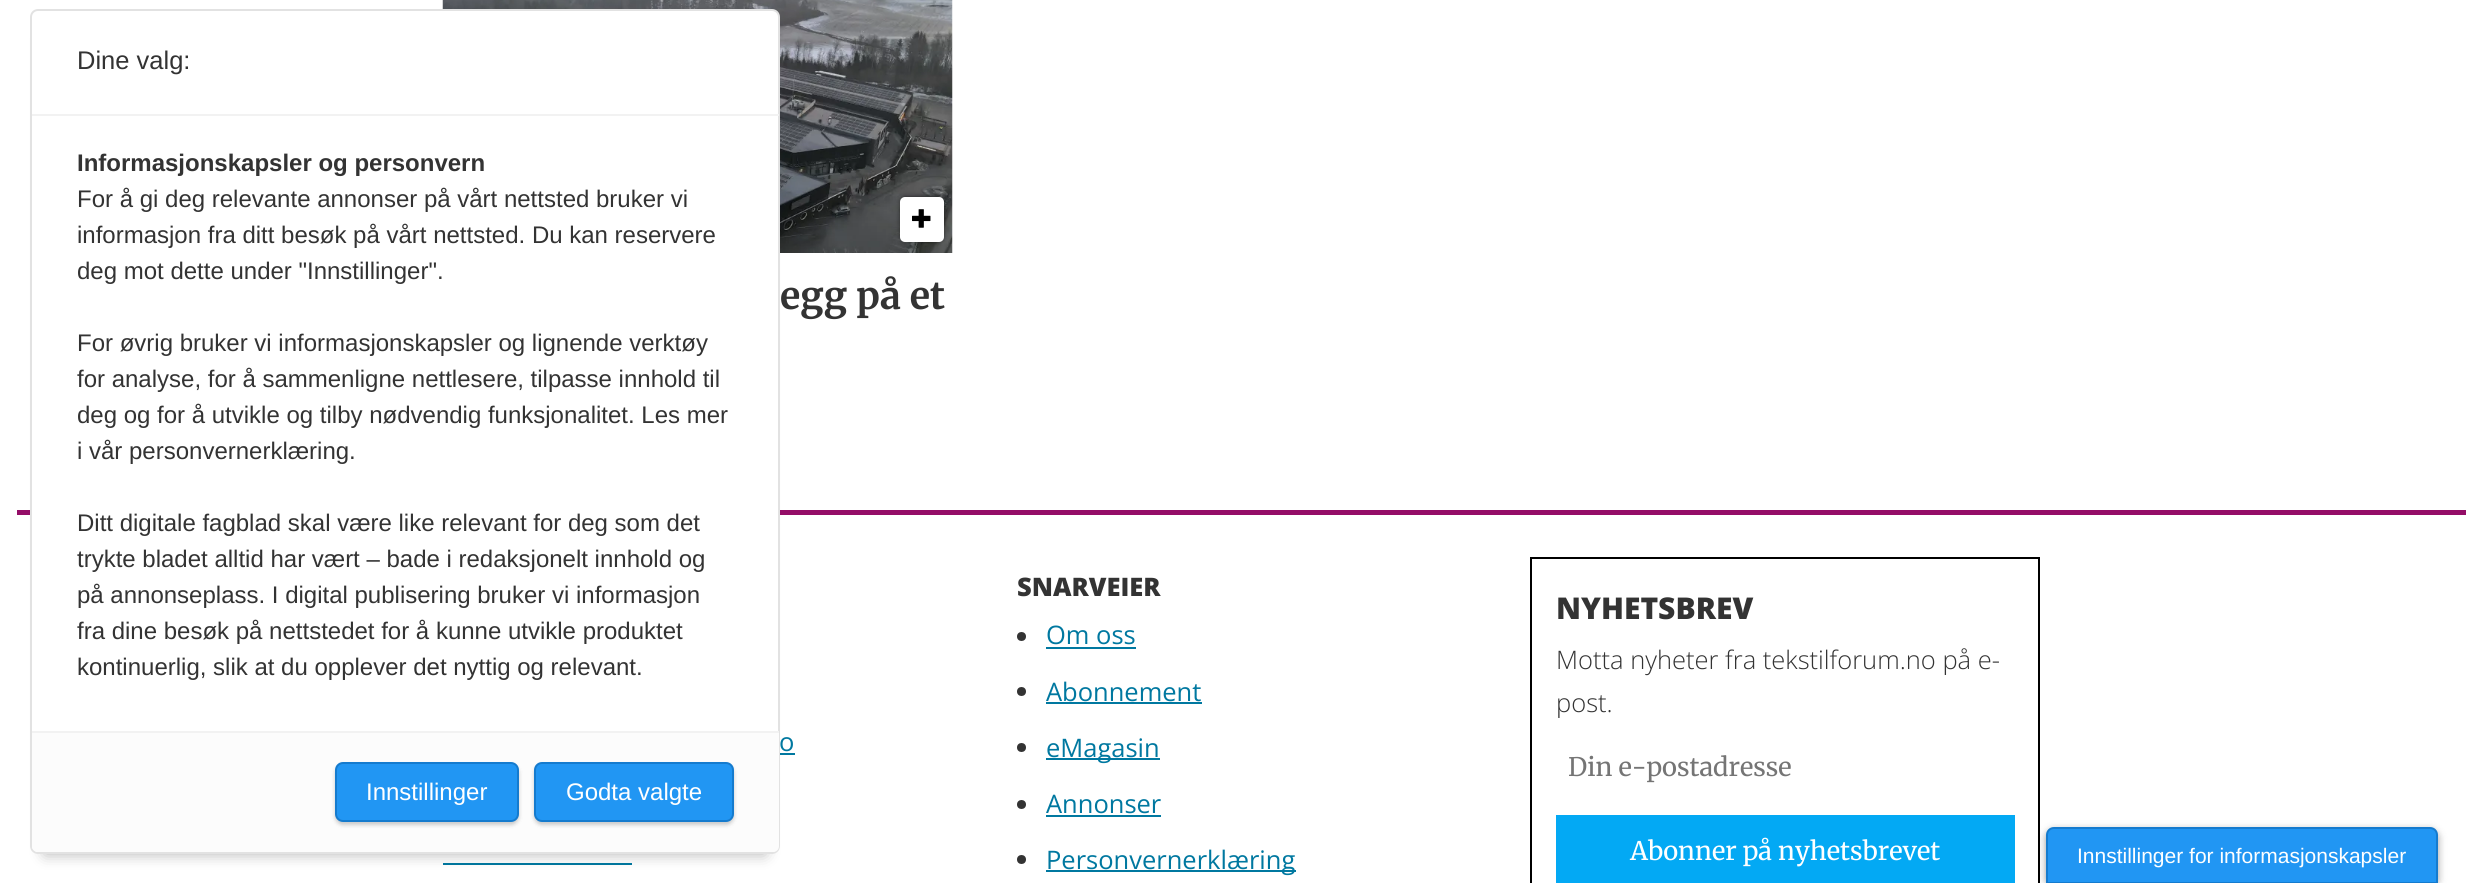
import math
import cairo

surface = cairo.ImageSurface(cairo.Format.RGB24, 2482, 883)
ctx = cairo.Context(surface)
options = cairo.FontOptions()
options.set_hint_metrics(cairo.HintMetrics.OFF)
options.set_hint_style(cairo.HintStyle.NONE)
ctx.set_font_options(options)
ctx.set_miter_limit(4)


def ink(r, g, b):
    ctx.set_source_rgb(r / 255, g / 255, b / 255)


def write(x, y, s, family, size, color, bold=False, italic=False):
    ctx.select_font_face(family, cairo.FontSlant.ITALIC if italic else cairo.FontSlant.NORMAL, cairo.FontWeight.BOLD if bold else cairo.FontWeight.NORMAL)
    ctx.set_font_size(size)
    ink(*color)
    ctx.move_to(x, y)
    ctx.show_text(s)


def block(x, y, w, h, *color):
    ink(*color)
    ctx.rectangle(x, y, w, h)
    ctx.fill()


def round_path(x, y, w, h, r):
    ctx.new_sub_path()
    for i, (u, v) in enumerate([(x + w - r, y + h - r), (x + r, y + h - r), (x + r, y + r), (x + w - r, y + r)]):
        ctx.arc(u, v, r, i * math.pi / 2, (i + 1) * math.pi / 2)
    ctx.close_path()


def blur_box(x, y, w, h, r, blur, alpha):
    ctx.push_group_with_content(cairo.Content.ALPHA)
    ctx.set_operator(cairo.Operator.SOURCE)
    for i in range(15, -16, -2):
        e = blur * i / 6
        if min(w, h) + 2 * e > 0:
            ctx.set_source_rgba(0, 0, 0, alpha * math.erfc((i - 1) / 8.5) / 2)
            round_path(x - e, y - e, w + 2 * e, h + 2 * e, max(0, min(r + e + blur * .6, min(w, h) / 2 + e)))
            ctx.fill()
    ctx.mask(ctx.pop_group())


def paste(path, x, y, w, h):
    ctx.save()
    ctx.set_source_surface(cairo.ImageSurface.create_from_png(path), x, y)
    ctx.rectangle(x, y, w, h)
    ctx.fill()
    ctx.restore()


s1 = dict(family="Liberation Sans", size=25.5, color=(51, 51, 51))
s2 = dict(family="Liberation Sans", size=24, color=(51, 51, 51), bold=True)
s3 = dict(family="Liberation Sans", size=24, color=(51, 51, 51))
s4 = dict(family="Liberation Sans", size=24, color=(255, 255, 255))
s5 = dict(family="Merriweather", size=37.5, color=(51, 51, 51), bold=True)
s6 = dict(family="Open Sans", size=25.5, color=(0, 120, 160))
s7 = dict(family="Open Sans ExtraBold", size=25.5, color=(51, 51, 51))
s8 = dict(family="Open Sans ExtraBold", size=30, color=(51, 51, 51))
s9 = dict(family="Open Sans Light", size=25.5, color=(51, 51, 51))
s10 = dict(family="Merriweather", size=25.5, color=(117, 117, 117))
s11 = dict(family="Merriweather", size=25.5, color=(255, 255, 255))
s12 = dict(family="Liberation Sans", size=21, color=(255, 255, 255))

ink(255, 255, 255)
ctx.paint()
paste("pic1.png", 442, 0, 511, 253)
block(17, 510, 2449, 5, 148, 13, 103)
block(780, 753, 15, 2, 0, 120, 160)
block(443, 863, 189, 2, 0, 120, 160)
ink(0, 0, 0)
blur_box(45, 39, 720, 815, 0, 7.5, 0.3)
ink(255, 255, 255)
round_path(31, 10, 748, 843, 7)
ctx.fill_preserve()
ink(226, 226, 226)
ctx.stroke()
block(32, 114, 747, 2, 242, 242, 242)
write(77, 69, "Dine valg:", **s1)
write(77, 171, "Informasjonskapsler og personvern", **s2)
write(77, 207, "For å gi deg relevante annonser på vårt nettsted bruker vi", **s3)
write(77, 243, "informasjon fra ditt besøk på vårt nettsted. Du kan reservere", **s3)
write(77, 279, "deg mot dette under \"Innstillinger\".", **s3)
write(77, 351, "For øvrig bruker vi informasjonskapsler og lignende verktøy", **s3)
write(77, 387, "for analyse, for å sammenligne nettlesere, tilpasse innhold til", **s3)
write(77, 423, "deg og for å utvikle og tilby nødvendig funksjonalitet. Les mer", **s3)
write(77, 459, "i vår personvernerklæring.", **s3)
write(77, 531, "Ditt digitale fagblad skal være like relevant for deg som det", **s3)
write(77, 567, "trykte bladet alltid har vært – bade i redaksjonelt innhold og", **s3)
write(77, 603, "på annonseplass. I digital publisering bruker vi informasjon", **s3)
write(77, 639, "fra dine besøk på nettstedet for å kunne utvikle produktet", **s3)
write(77, 675, "kontinuerlig, slik at du opplever det nyttig og relevant.", **s3)
ink(252, 252, 252)
ctx.new_path()
ctx.move_to(32, 731)
ctx.line_to(779, 731)
ctx.line_to(779, 846)
ctx.curve_to(779, 849.5, 776.5, 852, 773, 852)
ctx.line_to(38, 852)
ctx.curve_to(34.5, 852, 32, 849.5, 32, 846)
ctx.close_path()
ctx.fill()
block(32, 731, 747, 2, 242, 242, 242)
ink(0, 0, 0)
blur_box(335, 765, 184, 60, 8, 2, 0.2)
ink(33, 150, 243)
round_path(336, 763, 182, 58, 7)
ctx.fill_preserve()
ink(21, 123, 206)
ctx.stroke()
write(366, 800, "Innstillinger", **s4)
ink(0, 0, 0)
blur_box(534, 765, 200, 60, 8, 2, 0.2)
ink(33, 150, 243)
round_path(535, 763, 198, 58, 7)
ctx.fill_preserve()
ink(21, 123, 206)
ctx.stroke()
write(566, 800, "Godta valgte", **s4)
ink(0, 0, 0)
blur_box(902, 198, 40, 42, 3, 3, 1)
ink(255, 255, 255)
round_path(900, 197, 44, 45, 5)
ctx.fill()
paste("pic2.png", 912, 209, 19, 19)
write(780, 309, "egg på et", **s5)
write(779, 751, "o", **s6)
write(1017, 596, "SNARVEIER", **s7)
ctx.new_path()
ctx.arc(1021.5, 636.5, 4.5, 0, 2 * math.pi)
ctx.fill()
write(1046, 644, "Om oss", **s6)
block(1046, 647, 90, 2, 0, 120, 160)
ink(51, 51, 51)
ctx.new_path()
ctx.arc(1021.5, 691.5, 4.5, 0, 2 * math.pi)
ctx.fill()
write(1046, 701, "Abonnement", **s6)
block(1046, 702, 156, 2, 0, 120, 160)
ink(51, 51, 51)
ctx.new_path()
ctx.arc(1021.5, 747.5, 4.5, 0, 2 * math.pi)
ctx.fill()
block(1046, 758, 114, 2, 0, 120, 160)
write(1046, 757, "eMagasin", **s6)
ink(51, 51, 51)
ctx.new_path()
ctx.arc(1021.5, 804.5, 4.5, 0, 2 * math.pi)
ctx.fill()
write(1046, 813, "Annonser", **s6)
block(1046, 815, 115, 2, 0, 120, 160)
ink(51, 51, 51)
ctx.new_path()
ctx.arc(1021.5, 859.5, 4.5, 0, 2 * math.pi)
ctx.fill()
block(1046, 870, 250, 2, 0, 120, 160)
write(1046, 869, "Personvernerklæring", **s6)
ctx.rectangle(1531, 558, 508, 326)
ink(0, 0, 0)
ctx.stroke()
write(1556, 619, "NYHETSBREV", **s8)
write(1556, 669, "Motta nyheter fra tekstilforum.no på e-", **s9)
write(1556, 712, "post.", **s9)
write(1568, 776, "Din e-postadresse", **s10)
block(1556, 815, 459, 68, 3, 169, 244)
write(1630, 860, "Abonner på nyhetsbrevet", **s11)
ink(0, 0, 0)
blur_box(2046, 830, 392, 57, 8, 4, 0.4)
ink(33, 150, 243)
ctx.new_path()
ctx.move_to(2054, 828)
ctx.line_to(2430, 828)
ctx.curve_to(2434, 828, 2437, 831, 2437, 835)
ctx.line_to(2437, 883)
ctx.line_to(2047, 883)
ctx.line_to(2047, 835)
ctx.curve_to(2047, 831, 2050, 828, 2054, 828)
ctx.close_path()
ctx.fill_preserve()
ink(21, 123, 206)
ctx.stroke()
write(2077, 863, "Innstillinger for informasjonskapsler", **s12)
surface.write_to_png("screenshot.png")
